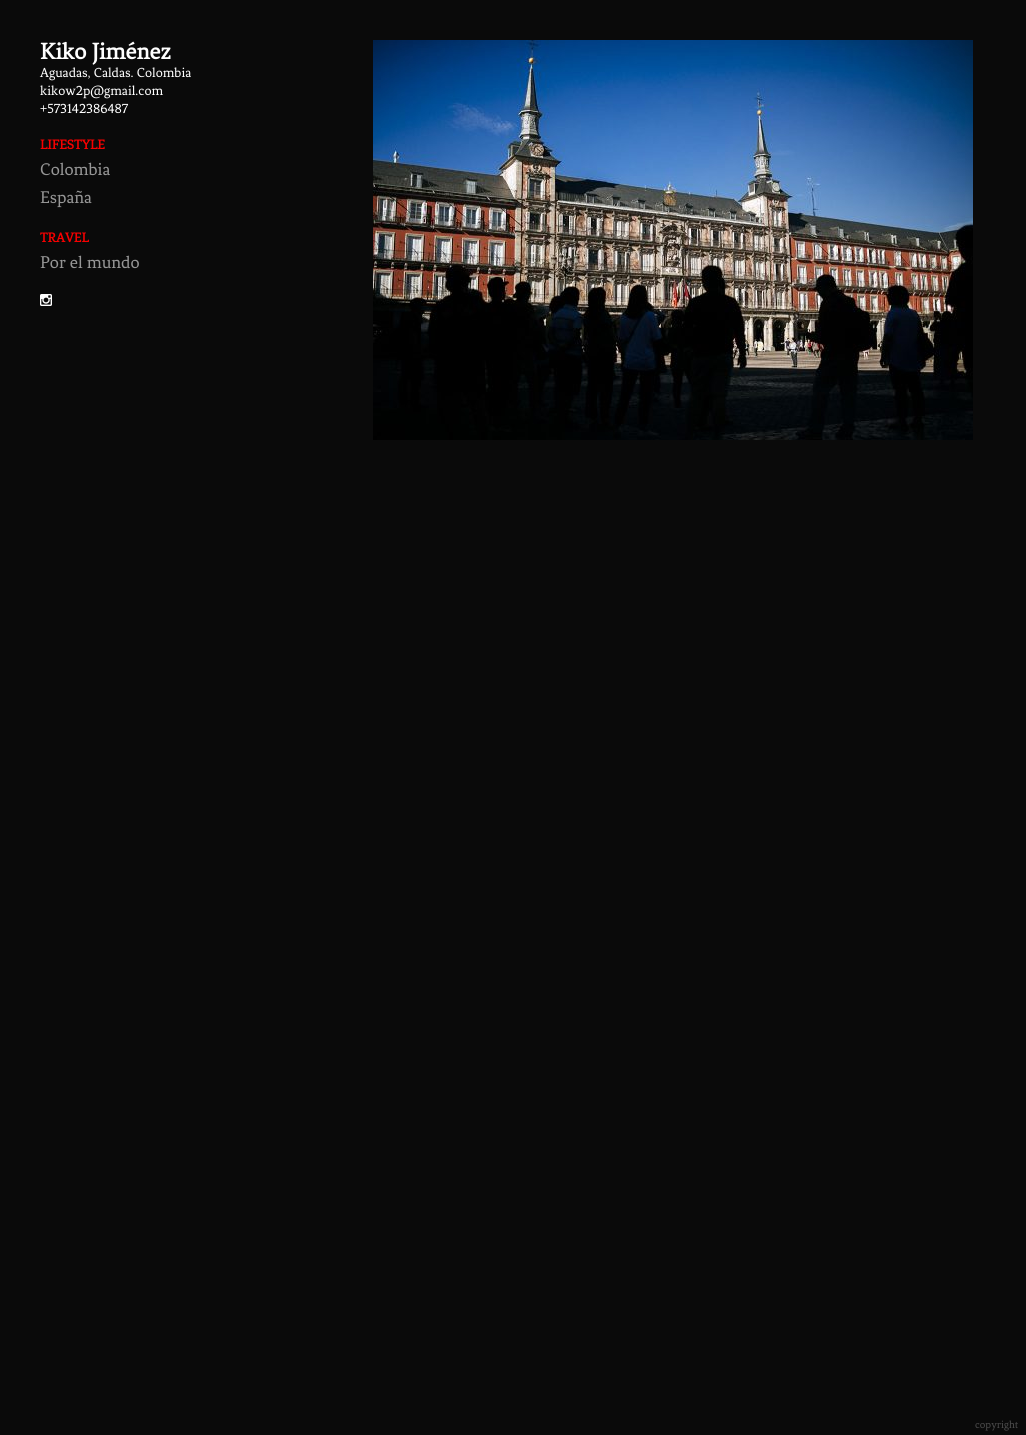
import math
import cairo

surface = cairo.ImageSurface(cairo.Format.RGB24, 1026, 1435)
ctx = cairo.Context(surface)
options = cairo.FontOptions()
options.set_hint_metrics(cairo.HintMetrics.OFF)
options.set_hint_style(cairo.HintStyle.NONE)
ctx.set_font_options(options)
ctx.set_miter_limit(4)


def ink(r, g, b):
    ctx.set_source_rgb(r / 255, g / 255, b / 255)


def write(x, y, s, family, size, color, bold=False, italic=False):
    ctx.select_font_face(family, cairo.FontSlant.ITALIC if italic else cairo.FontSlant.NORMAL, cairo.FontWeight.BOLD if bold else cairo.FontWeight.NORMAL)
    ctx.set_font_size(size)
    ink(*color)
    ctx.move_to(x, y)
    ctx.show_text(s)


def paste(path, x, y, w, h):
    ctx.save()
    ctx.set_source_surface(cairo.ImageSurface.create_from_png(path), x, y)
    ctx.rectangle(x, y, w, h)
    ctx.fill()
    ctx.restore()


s1 = dict(family="Fenix", size=24, color=(255, 255, 255), bold=True)
s2 = dict(family="Fenix", size=14, color=(255, 255, 255))
s3 = dict(family="Fenix", size=14, color=(247, 0, 0), bold=True)
s4 = dict(family="Fenix", size=18, color=(150, 150, 150))
s5 = dict(family="Fenix", size=11, color=(75, 75, 75))

ink(10, 10, 10)
ctx.paint()
write(40, 59, "Kiko Jiménez", **s1)
write(40, 77, "Aguadas, Caldas. Colombia", **s2)
write(40, 95, "kikow2p@gmail.com", **s2)
write(40, 113, "+573142386487", **s2)
write(40, 149, "LIFESTYLE", **s3)
write(40, 175, "Colombia", **s4)
write(40, 203, "España", **s4)
write(40, 242, "TRAVEL", **s3)
write(40, 268, "Por el mundo", **s4)
paste("pic1.png", 40, 294, 12, 12)
paste("pic2.png", 373, 40, 600, 400)
write(975, 1428, "copyright", **s5)
surface.write_to_png("screenshot.png")
